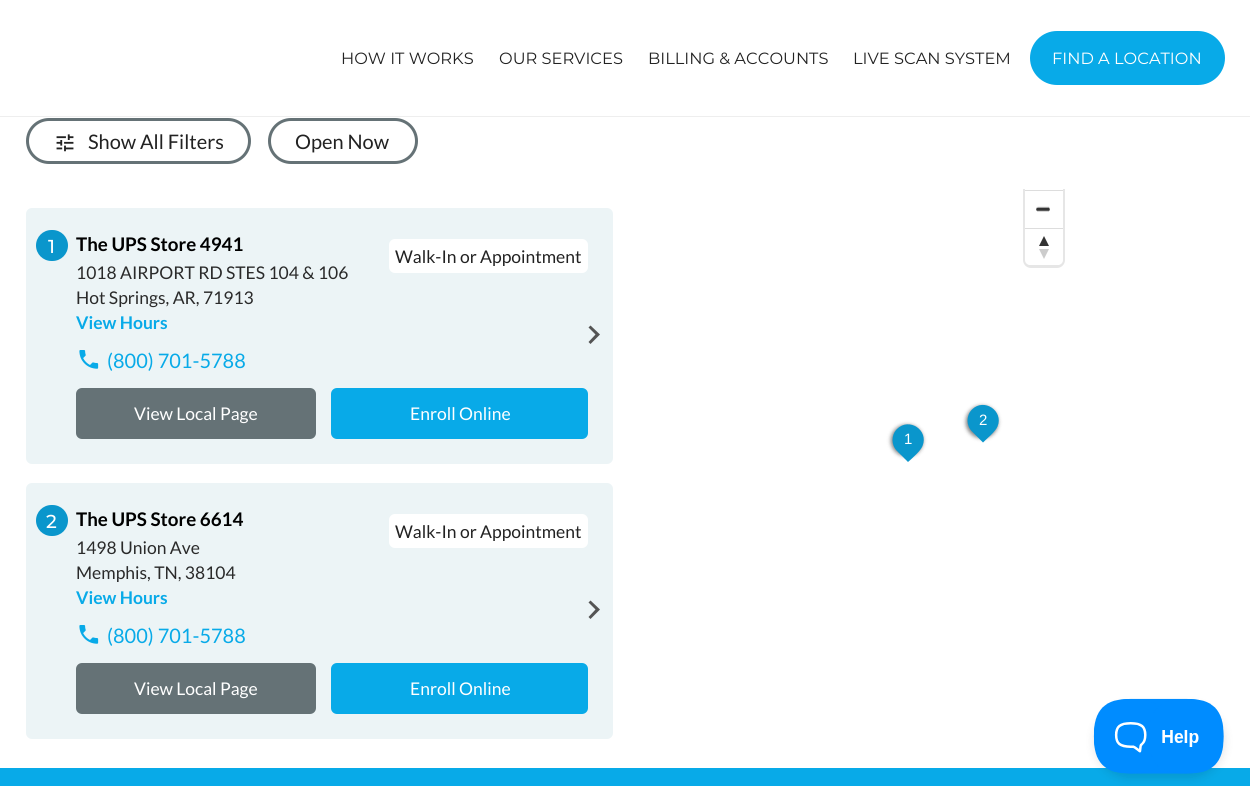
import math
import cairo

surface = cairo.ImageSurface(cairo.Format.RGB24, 1250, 786)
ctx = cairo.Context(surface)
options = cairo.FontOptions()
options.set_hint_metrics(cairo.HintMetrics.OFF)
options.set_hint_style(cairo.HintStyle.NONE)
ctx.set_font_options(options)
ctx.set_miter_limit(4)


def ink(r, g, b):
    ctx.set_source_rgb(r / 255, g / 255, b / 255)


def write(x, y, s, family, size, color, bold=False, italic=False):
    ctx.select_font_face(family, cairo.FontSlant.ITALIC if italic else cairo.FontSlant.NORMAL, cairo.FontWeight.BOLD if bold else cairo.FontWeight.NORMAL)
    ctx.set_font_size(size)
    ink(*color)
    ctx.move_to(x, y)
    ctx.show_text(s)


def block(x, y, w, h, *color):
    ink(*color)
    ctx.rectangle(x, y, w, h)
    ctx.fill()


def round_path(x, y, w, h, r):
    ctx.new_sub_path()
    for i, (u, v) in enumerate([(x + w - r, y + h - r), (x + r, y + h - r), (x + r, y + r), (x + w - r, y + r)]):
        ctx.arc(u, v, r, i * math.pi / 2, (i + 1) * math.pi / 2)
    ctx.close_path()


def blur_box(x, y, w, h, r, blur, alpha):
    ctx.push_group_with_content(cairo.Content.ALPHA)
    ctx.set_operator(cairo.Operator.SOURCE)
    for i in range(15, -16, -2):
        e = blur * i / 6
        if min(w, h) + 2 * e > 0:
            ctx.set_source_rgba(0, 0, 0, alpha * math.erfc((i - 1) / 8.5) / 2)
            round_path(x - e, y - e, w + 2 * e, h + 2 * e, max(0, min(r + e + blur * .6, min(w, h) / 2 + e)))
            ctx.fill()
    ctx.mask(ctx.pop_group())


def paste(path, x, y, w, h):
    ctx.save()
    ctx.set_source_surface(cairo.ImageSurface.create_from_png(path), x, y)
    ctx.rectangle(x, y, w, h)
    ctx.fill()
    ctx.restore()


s1 = dict(family="Montserrat", size=16.25, color=(34, 34, 34))
s2 = dict(family="Montserrat", size=16.25, color=(255, 255, 255))
s3 = dict(family="Lato", size=20, color=(34, 34, 34))
s4 = dict(family="Montserrat Medium", size=18.75, color=(255, 255, 255))
s5 = dict(family="Lato", size=18.75, color=(0, 0, 0), bold=True)
s6 = dict(family="Lato", size=17.5, color=(42, 42, 42))
s7 = dict(family="Lato", size=17.5, color=(8, 170, 232), bold=True)
s8 = dict(family="Lato", size=17.5, color=(34, 34, 34))
s9 = dict(family="Lato", size=20, color=(8, 170, 232))
s10 = dict(family="Lato", size=17.5, color=(255, 255, 255))
s11 = dict(family="Liberation Sans", size=15, color=(255, 255, 255))

ink(255, 255, 255)
ctx.paint()
block(0, 116, 1250, 1, 238, 238, 238)
write(341, 64, "HOW IT WORKS", **s1)
write(499, 64, "OUR SERVICES", **s1)
write(648, 64, "BILLING & ACCOUNTS", **s1)
write(853, 64, "LIVE SCAN SYSTEM", **s1)
ink(8, 170, 232)
round_path(1030, 31, 195, 54, 27)
ctx.fill()
write(1052, 64, "FIND A LOCATION", **s2)
round_path(1024.5, 151.5, 39, 115, 6.5)
ink(230, 230, 230)
ctx.set_line_width(3)
ctx.stroke()
ink(255, 255, 255)
round_path(1025, 153, 38, 112, 5)
ctx.fill()
block(1023, 150, 42, 39, 255, 255, 255)
round_path(27.5, 119.5, 222, 43, 21.5)
ink(101, 114, 118)
ctx.stroke()
paste("pic1.png", 56, 134, 18, 18)
write(88, 149, "Show All Filters", **s3)
round_path(269.5, 119.5, 147, 43, 21.5)
ink(101, 114, 118)
ctx.stroke()
write(295, 149, "Open Now", **s3)
ink(236, 244, 246)
round_path(26, 208, 587, 256, 6)
ctx.fill()
ink(10, 150, 204)
round_path(36, 230, 32, 31, 15.5)
ctx.fill()
write(48, 253, "1", **s4)
write(76, 251, "The UPS Store 4941", **s5)
write(76, 279, "1018 AIRPORT RD STES 104 & 106", **s6)
write(76, 304, "Hot Springs, AR, 71913", **s6)
write(76, 329, "View Hours", **s7)
ink(255, 255, 255)
round_path(389, 239, 199, 34, 6)
ctx.fill()
write(395, 263, "Walk-In or Appointment", **s8)
ink(84, 84, 84)
ctx.new_path()
ctx.move_to(588.5, 342)
ctx.line_to(595.5, 334.5)
ctx.line_to(588.5, 327.5)
ctx.line_to(590.5, 325.5)
ctx.line_to(600, 334.5)
ctx.line_to(590.5, 344)
ctx.close_path()
ctx.fill()
paste("pic2.png", 79, 350, 20, 19)
write(107, 368, "(800) 701-5788", **s9)
ink(101, 114, 118)
round_path(77.5, 389.5, 237, 48, 4.5)
ctx.fill_preserve()
ctx.stroke()
write(134, 420, "View Local Page", **s10)
ink(8, 170, 232)
round_path(332.5, 389.5, 254, 48, 4.5)
ctx.fill_preserve()
ctx.stroke()
write(410, 420, "Enroll Online", **s10)
ink(236, 244, 246)
round_path(26, 483, 587, 256, 6)
ctx.fill()
ink(10, 150, 204)
round_path(36, 505, 32, 31, 15.5)
ctx.fill()
write(46, 528, "2", **s4)
write(76, 526, "The UPS Store 6614", **s5)
write(76, 554, "1498 Union Ave", **s6)
write(76, 579, "Memphis, TN, 38104", **s6)
write(76, 604, "View Hours", **s7)
ink(255, 255, 255)
round_path(389, 514, 199, 34, 6)
ctx.fill()
write(395, 538, "Walk-In or Appointment", **s8)
ink(84, 84, 84)
ctx.new_path()
ctx.move_to(588.5, 617)
ctx.line_to(595.5, 609.5)
ctx.line_to(588.5, 602.5)
ctx.line_to(590.5, 600.5)
ctx.line_to(600, 609.5)
ctx.line_to(590.5, 619)
ctx.close_path()
ctx.fill()
paste("pic2.png", 79, 625, 20, 19)
write(107, 643, "(800) 701-5788", **s9)
ink(101, 114, 118)
round_path(77.5, 664.5, 237, 48, 4.5)
ctx.fill_preserve()
ctx.stroke()
write(134, 695, "View Local Page", **s10)
ink(8, 170, 232)
round_path(332.5, 664.5, 254, 48, 4.5)
ctx.fill_preserve()
ctx.stroke()
write(410, 695, "Enroll Online", **s10)
paste("pic3.png", 1036, 206, 14, 6)
block(1025, 190, 38, 1, 221, 221, 221)
block(1025, 228, 38, 1, 221, 221, 221)
ink(51, 51, 51)
ctx.new_path()
ctx.move_to(1039, 246)
ctx.line_to(1044, 236)
ctx.line_to(1049, 246)
ctx.close_path()
ctx.fill()
ink(204, 204, 204)
ctx.new_path()
ctx.move_to(1039, 249)
ctx.line_to(1044, 259)
ctx.line_to(1049, 249)
ctx.close_path()
ctx.fill()
ink(0, 0, 0)
blur_box(966, 406, 32, 32, 16, 2, 0.5)
ink(10, 150, 204)
ctx.new_path()
ctx.move_to(972, 409.5)
ctx.curve_to(984, 397.5, 1004, 411, 997.5, 426.5)
ctx.curve_to(995.5, 431.5, 987, 438.5, 983, 442.5)
ctx.line_to(972, 431.5)
ctx.curve_to(966, 425.5, 966, 415.5, 972, 409.5)
ctx.close_path()
ctx.fill()
write(979, 425, "2", **s11)
ink(0, 0, 0)
blur_box(891, 425, 32, 31, 15.5, 2, 0.5)
ink(10, 150, 204)
ctx.new_path()
ctx.move_to(897, 429)
ctx.curve_to(909, 417, 929, 430, 922.5, 446)
ctx.curve_to(920.5, 451, 912.5, 458, 908, 462)
ctx.line_to(897, 451)
ctx.curve_to(891, 445, 891, 435, 897, 429)
ctx.close_path()
ctx.fill()
write(904, 444, "1", **s11)
block(0, 768, 1250, 18, 8, 170, 232)
ink(0, 0, 0)
blur_box(1094, 704, 131, 75, 37.5, 4.5, 0.1)
paste("pic4.png", 1093, 698, 131, 76)
surface.write_to_png("screenshot.png")
